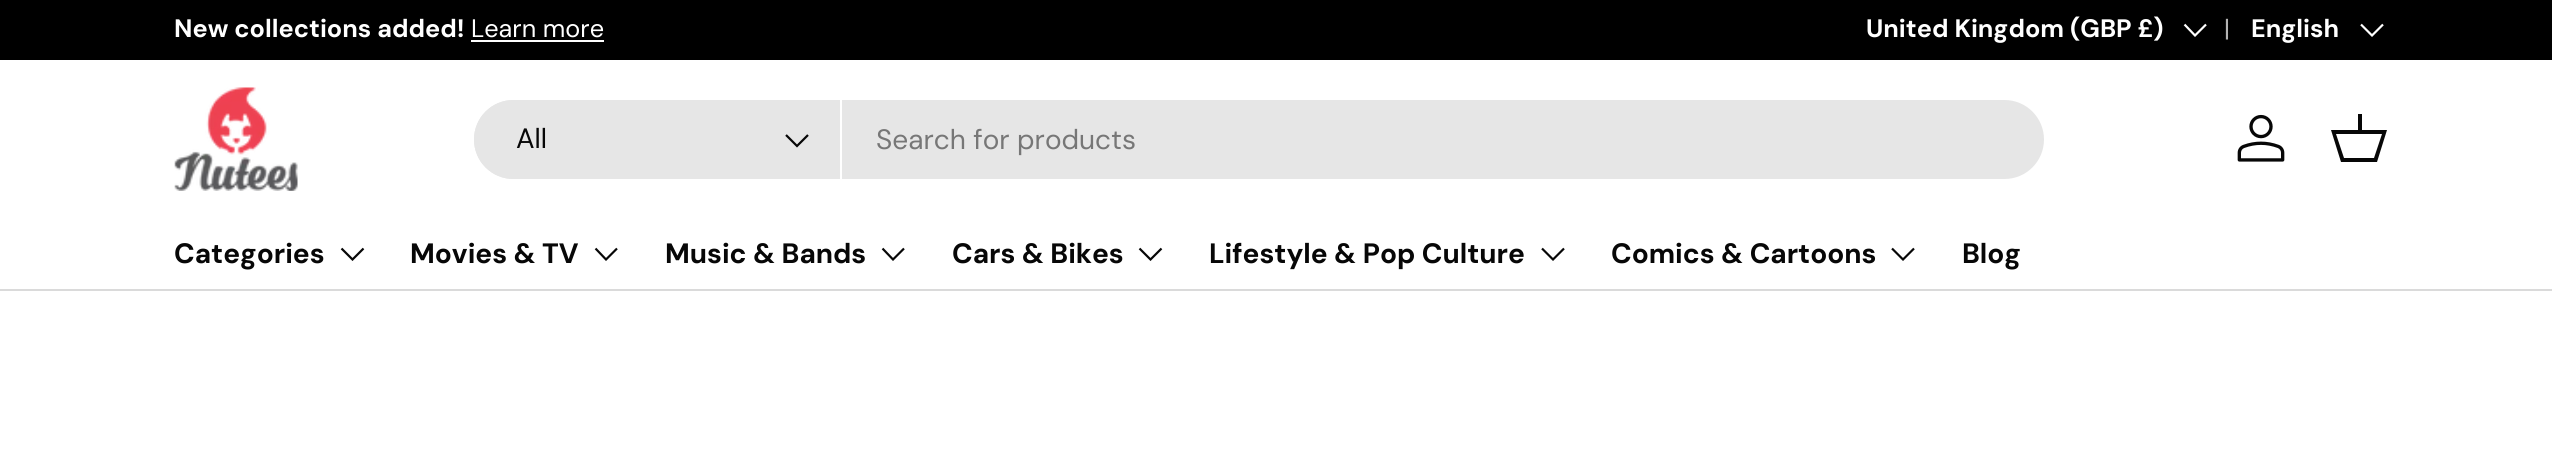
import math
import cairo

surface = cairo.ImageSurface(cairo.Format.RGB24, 2552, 474)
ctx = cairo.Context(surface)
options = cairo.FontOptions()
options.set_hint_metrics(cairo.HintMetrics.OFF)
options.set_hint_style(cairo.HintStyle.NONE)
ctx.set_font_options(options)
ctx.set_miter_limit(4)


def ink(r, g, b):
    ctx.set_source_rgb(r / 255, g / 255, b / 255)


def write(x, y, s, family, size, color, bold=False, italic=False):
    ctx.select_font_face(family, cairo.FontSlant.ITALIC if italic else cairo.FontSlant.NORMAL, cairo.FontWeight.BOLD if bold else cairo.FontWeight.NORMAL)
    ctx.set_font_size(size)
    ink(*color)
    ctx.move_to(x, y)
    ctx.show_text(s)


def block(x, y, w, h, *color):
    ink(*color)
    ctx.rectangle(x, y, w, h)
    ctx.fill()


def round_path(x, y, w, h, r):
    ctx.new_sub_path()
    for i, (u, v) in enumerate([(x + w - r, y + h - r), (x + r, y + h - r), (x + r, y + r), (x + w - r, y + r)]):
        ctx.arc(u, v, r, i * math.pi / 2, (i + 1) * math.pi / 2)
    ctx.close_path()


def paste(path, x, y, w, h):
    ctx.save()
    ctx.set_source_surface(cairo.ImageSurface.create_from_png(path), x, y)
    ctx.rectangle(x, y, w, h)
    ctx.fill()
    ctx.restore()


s1 = dict(family="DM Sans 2", size=25.25, color=(255, 255, 255), bold=True)
s2 = dict(family="DM Sans 2", size=25.25, color=(255, 255, 255))
s3 = dict(family="DM Sans 2", size=25.25, color=(179, 179, 179))
s4 = dict(family="DM Sans", size=28, color=(7, 7, 7))
s5 = dict(family="DM Sans", size=28, color=(119, 119, 119))
s6 = dict(family="DM Sans", size=28, color=(7, 7, 7), bold=True)

ink(255, 255, 255)
ctx.paint()
block(0, 0, 2552, 60, 0, 0, 0)
write(174, 37, "New collections added!", **s1)
write(471, 37, "Learn more", **s2)
block(471, 40, 133, 2, 255, 255, 255)
write(1866, 37, "United Kingdom (GBP £)", **s1)
ctx.new_path()
ctx.move_to(2206, 24.5)
ctx.line_to(2195, 35.5)
ctx.line_to(2184.5, 24.5)
ctx.set_line_width(2.2)
ctx.stroke()
write(2224, 37, "|", **s3)
write(2251, 37, "English", **s1)
ctx.new_path()
ctx.move_to(2383, 24.5)
ctx.line_to(2372, 35.5)
ctx.line_to(2361, 24.5)
ctx.stroke()
block(0, 289, 2552, 2, 218, 218, 218)
paste("pic1.png", 174, 87, 124, 104)
ink(230, 230, 230)
round_path(474, 100, 1570, 79, 39.5)
ctx.fill()
ctx.new_path()
ctx.move_to(513.5, 100)
ctx.line_to(842, 100)
ctx.line_to(842, 179)
ctx.line_to(513.5, 179)
ctx.curve_to(491.5, 179, 474, 161.5, 474, 139.5)
ctx.curve_to(474, 117.5, 491.5, 100, 513.5, 100)
ctx.close_path()
ctx.fill()
block(840, 100, 2, 79, 255, 255, 255)
write(516, 148, "All", **s4)
ctx.new_path()
ctx.move_to(808, 135)
ctx.line_to(797, 146)
ctx.line_to(786, 135)
ctx.stroke()
write(876, 149, "Search for products", **s5)
paste("pic2.png", 2237, 114, 48, 48)
ink(7, 7, 7)
ctx.new_path()
ctx.move_to(2358, 130)
ctx.line_to(2358, 114)
ctx.line_to(2362, 114)
ctx.line_to(2362, 130)
ctx.line_to(2387, 130)
ctx.line_to(2377, 162)
ctx.line_to(2341, 162)
ctx.line_to(2331, 130)
ctx.close_path()
ctx.move_to(2336, 134)
ctx.line_to(2344, 158)
ctx.line_to(2374, 158)
ctx.line_to(2382, 134)
ctx.close_path()
ctx.fill()
write(174, 263, "Categories", **s6)
ctx.new_path()
ctx.move_to(363.5, 248.5)
ctx.line_to(352.5, 259.5)
ctx.line_to(341.5, 248.5)
ctx.stroke()
write(410, 263, "Movies & TV", **s6)
ctx.new_path()
ctx.move_to(617, 248.5)
ctx.line_to(606, 259.5)
ctx.line_to(595.5, 248.5)
ctx.stroke()
write(665, 263, "Music & Bands", **s6)
ctx.new_path()
ctx.move_to(904, 248.5)
ctx.line_to(893, 259.5)
ctx.line_to(882.5, 248.5)
ctx.stroke()
write(952, 263, "Cars & Bikes", **s6)
ctx.new_path()
ctx.move_to(1161.5, 248.5)
ctx.line_to(1150.5, 259.5)
ctx.line_to(1139.5, 248.5)
ctx.stroke()
write(1209, 263, "Lifestyle & Pop Culture", **s6)
ctx.new_path()
ctx.move_to(1564, 248.5)
ctx.line_to(1553, 259.5)
ctx.line_to(1542, 248.5)
ctx.stroke()
write(1611, 263, "Comics & Cartoons", **s6)
ctx.new_path()
ctx.move_to(1914, 248.5)
ctx.line_to(1903, 259.5)
ctx.line_to(1892, 248.5)
ctx.stroke()
write(1962, 263, "Blog", **s6)
surface.write_to_png("screenshot.png")
